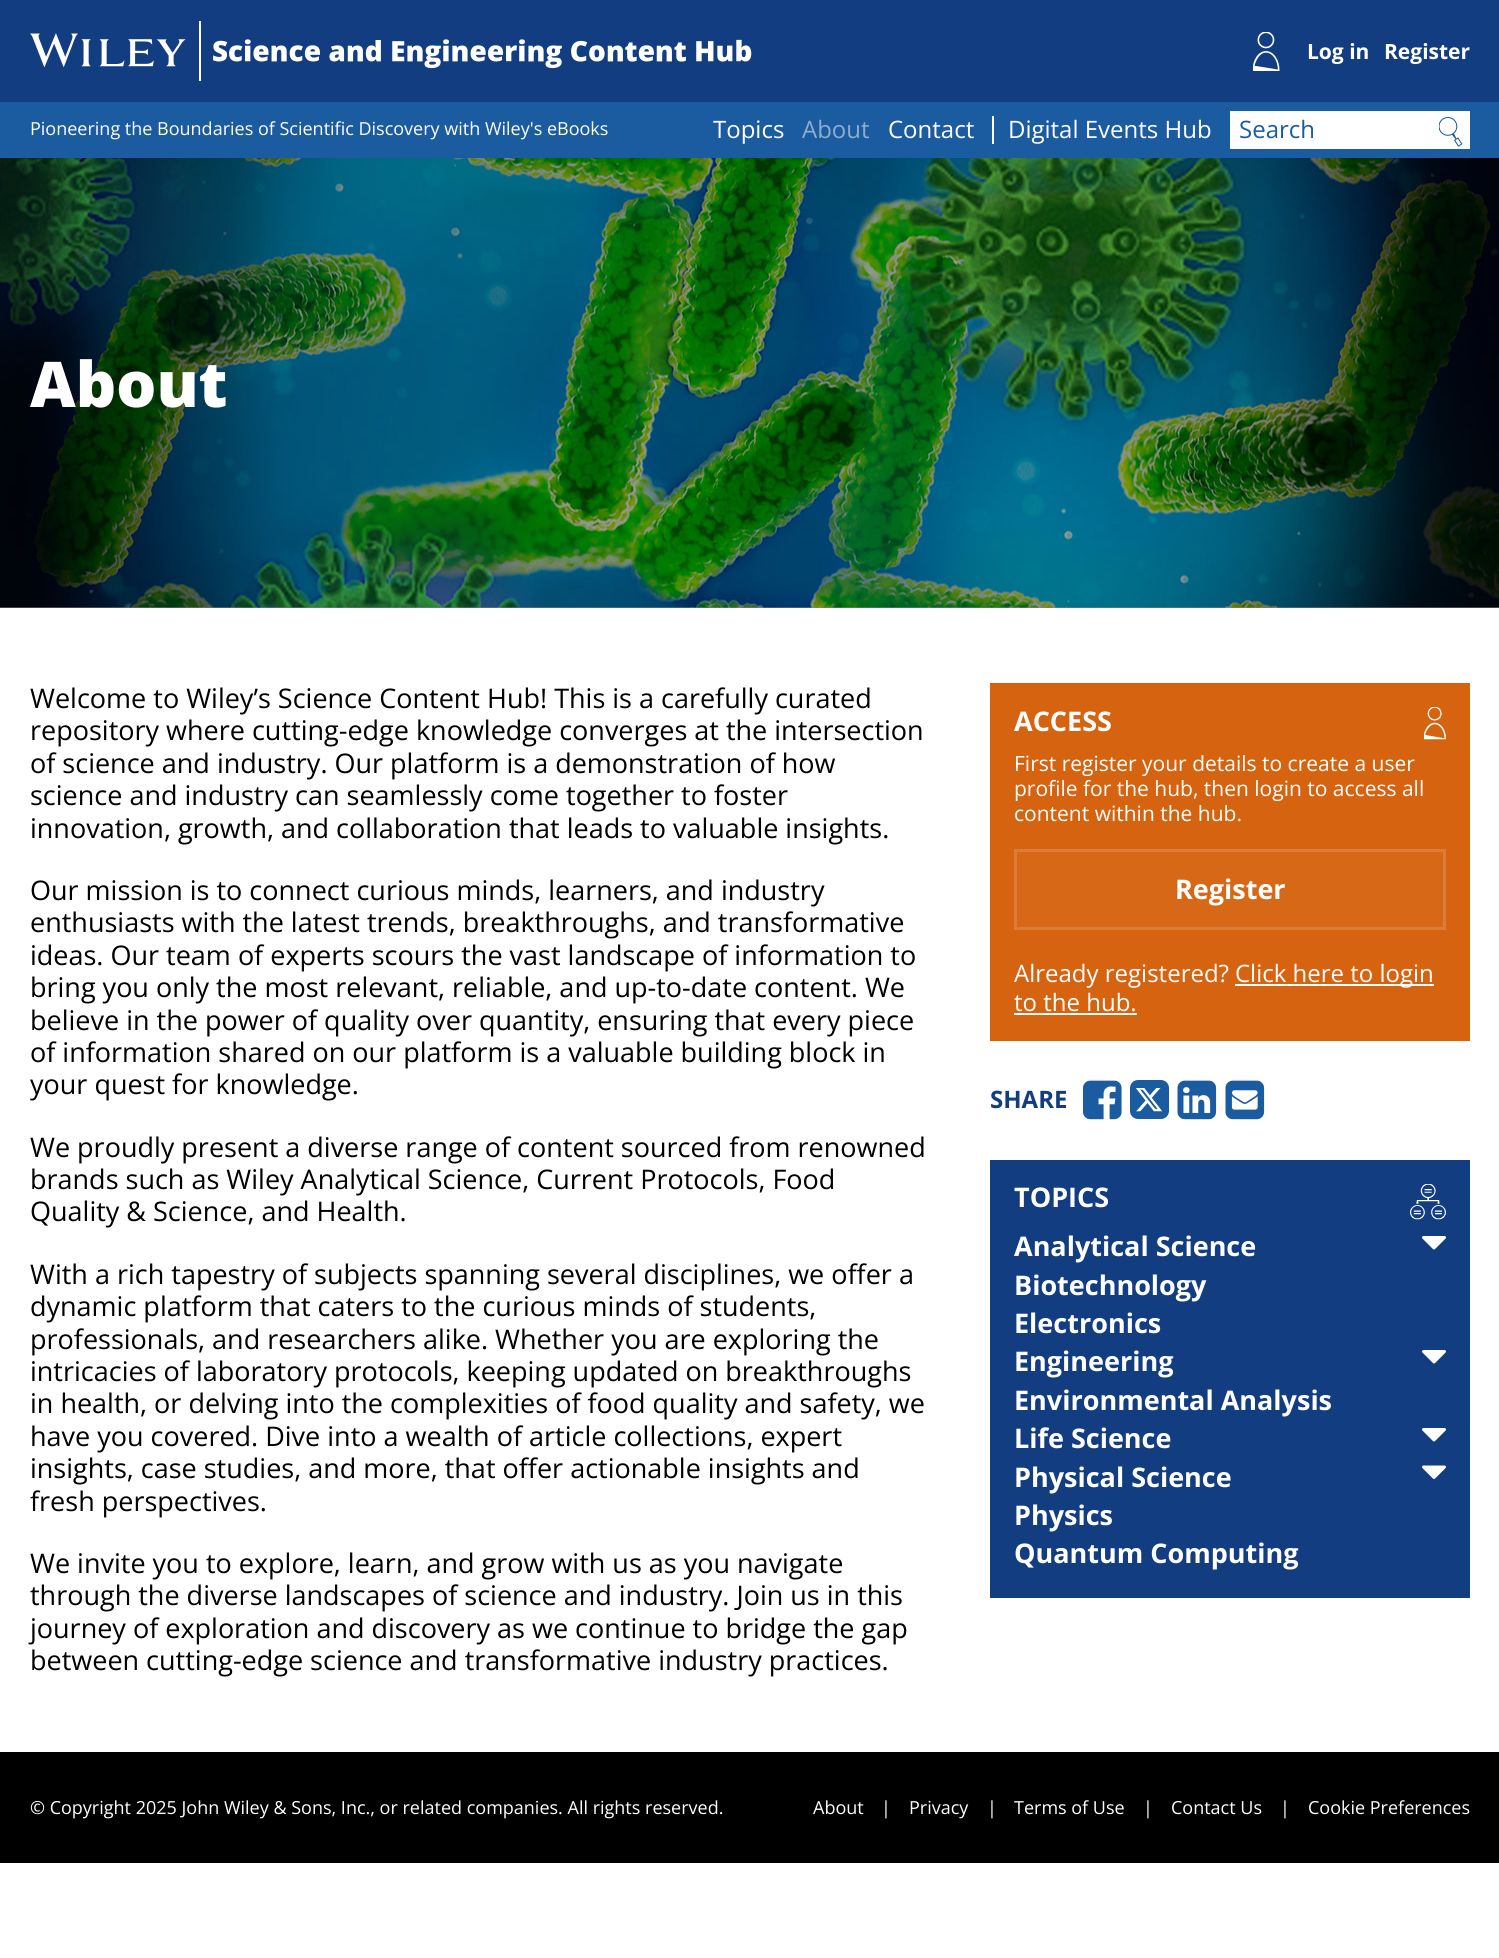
import math
import cairo

surface = cairo.ImageSurface(cairo.Format.RGB24, 1499, 1958)
ctx = cairo.Context(surface)
options = cairo.FontOptions()
options.set_hint_metrics(cairo.HintMetrics.OFF)
options.set_hint_style(cairo.HintStyle.NONE)
ctx.set_font_options(options)
ctx.set_miter_limit(4)


def ink(r, g, b):
    ctx.set_source_rgb(r / 255, g / 255, b / 255)


def write(x, y, s, family, size, color, bold=False, italic=False):
    ctx.select_font_face(family, cairo.FontSlant.ITALIC if italic else cairo.FontSlant.NORMAL, cairo.FontWeight.BOLD if bold else cairo.FontWeight.NORMAL)
    ctx.set_font_size(size)
    ink(*color)
    ctx.move_to(x, y)
    ctx.show_text(s)


def block(x, y, w, h, *color):
    ink(*color)
    ctx.rectangle(x, y, w, h)
    ctx.fill()


def round_path(x, y, w, h, r):
    ctx.new_sub_path()
    for i, (u, v) in enumerate([(x + w - r, y + h - r), (x + r, y + h - r), (x + r, y + r), (x + w - r, y + r)]):
        ctx.arc(u, v, r, i * math.pi / 2, (i + 1) * math.pi / 2)
    ctx.close_path()


def paste(path, x, y, w, h):
    ctx.save()
    ctx.set_source_surface(cairo.ImageSurface.create_from_png(path), x, y)
    ctx.rectangle(x, y, w, h)
    ctx.fill()
    ctx.restore()


s1 = dict(family="Open Sans", size=21, color=(255, 255, 255), bold=True)
s2 = dict(family="Open Sans", size=18, color=(255, 255, 255))
s3 = dict(family="Open Sans", size=24, color=(255, 255, 255))
s4 = dict(family="Open Sans", size=24, color=(141, 173, 208))
s5 = dict(family="Open Sans", size=24, color=(27, 91, 160))
s6 = dict(family="Open Sans ExtraBold", size=63, color=(255, 255, 255))
s7 = dict(family="Open Sans", size=27, color=(0, 0, 0))
s8 = dict(family="Open Sans", size=27, color=(255, 255, 255), bold=True)
s9 = dict(family="Open Sans", size=21, color=(255, 255, 255))
s10 = dict(family="Open Sans", size=24, color=(18, 61, 128), bold=True)

ink(255, 255, 255)
ctx.paint()
block(0, 0, 1499, 102, 18, 61, 129)
paste("pic1.png", 30, 21, 722, 60)
paste("pic2.png", 1253, 32, 27, 39)
write(1307, 59, "Log in", **s1)
write(1384, 59, "Register", **s1)
block(0, 102, 1499, 56, 27, 91, 160)
write(30, 135, "Pioneering the Boundaries of Scientific Discovery with Wiley's eBooks", **s2)
write(713, 138, "Topics", **s3)
write(802, 138, "About", **s4)
write(888, 138, "Contact", **s3)
block(992, 116, 2, 28, 255, 255, 255)
write(1008, 138, "Digital Events Hub", **s3)
block(1230, 111, 240, 38, 255, 255, 255)
write(1239, 138, "Search", **s5)
paste("pic3.png", 1439, 117, 24, 30)
block(0, 607, 1499, 1, 130, 130, 131)
paste("pic4.png", 0, 158, 1499, 450)
write(30, 407, "About", **s6)
write(30, 708, "Welcome to Wiley’s Science Content Hub! This is a carefully curated", **s7)
write(30, 740, "repository where cutting-edge knowledge converges at the intersection", **s7)
write(30, 773, "of science and industry. Our platform is a demonstration of how", **s7)
write(30, 805, "science and industry can seamlessly come together to foster", **s7)
write(30, 838, "innovation, growth, and collaboration that leads to valuable insights.", **s7)
write(30, 900, "Our mission is to connect curious minds, learners, and industry", **s7)
write(30, 932, "enthusiasts with the latest trends, breakthroughs, and transformative", **s7)
write(30, 965, "ideas. Our team of experts scours the vast landscape of information to", **s7)
write(30, 997, "bring you only the most relevant, reliable, and up-to-date content. We", **s7)
write(30, 1030, "believe in the power of quality over quantity, ensuring that every piece", **s7)
write(30, 1062, "of information shared on our platform is a valuable building block in", **s7)
write(30, 1094, "your quest for knowledge.", **s7)
write(30, 1157, "We proudly present a diverse range of content sourced from renowned", **s7)
write(30, 1189, "brands such as Wiley Analytical Science, Current Protocols, Food", **s7)
write(30, 1221, "Quality & Science, and Health.", **s7)
write(30, 1284, "With a rich tapestry of subjects spanning several disciplines, we offer a", **s7)
write(30, 1316, "dynamic platform that caters to the curious minds of students,", **s7)
write(30, 1349, "professionals, and researchers alike. Whether you are exploring the", **s7)
write(30, 1381, "intricacies of laboratory protocols, keeping updated on breakthroughs", **s7)
write(30, 1413, "in health, or delving into the complexities of food quality and safety, we", **s7)
write(30, 1446, "have you covered. Dive into a wealth of article collections, expert", **s7)
write(30, 1478, "insights, case studies, and more, that offer actionable insights and", **s7)
write(30, 1511, "fresh perspectives.", **s7)
write(30, 1573, "We invite you to explore, learn, and grow with us as you navigate", **s7)
write(30, 1605, "through the diverse landscapes of science and industry. Join us in this", **s7)
write(30, 1638, "journey of exploration and discovery as we continue to bridge the gap", **s7)
write(30, 1670, "between cutting-edge science and transformative industry practices.", **s7)
block(990, 683, 480, 358, 214, 99, 16)
write(1014, 731, "ACCESS", **s8)
paste("pic5.png", 1424, 707, 22, 33)
write(1014, 771, "First register your details to create a user", **s9)
write(1014, 796, "profile for the hub, then login to access all", **s9)
write(1014, 821, "content within the hub.", **s9)
ink(215, 104, 24)
ctx.rectangle(1015.5, 850.5, 429, 78)
ctx.fill_preserve()
ink(220, 124, 54)
ctx.set_line_width(3)
ctx.stroke()
write(1175, 899, "Register", **s8)
write(1014, 982, "Already registered?", **s3)
block(1235, 984, 199, 2, 255, 255, 255)
write(1235, 982, "Click here to login", **s3)
write(1014, 1011, "to the hub.", **s3)
block(1014, 1013, 123, 2, 255, 255, 255)
write(990, 1108, "SHARE", **s10)
paste("pic6.png", 1083, 1080, 39, 40)
ink(27, 91, 160)
round_path(1130, 1080, 39, 39, 8)
ctx.fill()
paste("pic7.png", 1136, 1088, 27, 24)
paste("pic8.png", 1177, 1080, 40, 40)
paste("pic9.png", 1225, 1080, 40, 40)
block(990, 1160, 480, 438, 18, 61, 129)
write(1014, 1207, "TOPICS", **s8)
paste("pic10.png", 1410, 1184, 36, 36)
write(1014, 1256, "Analytical Science", **s8)
paste("pic11.png", 1422, 1236, 24, 14)
write(1014, 1295, "Biotechnology", **s8)
write(1014, 1333, "Electronics", **s8)
write(1014, 1371, "Engineering", **s8)
paste("pic11.png", 1422, 1350, 24, 14)
write(1014, 1410, "Environmental Analysis", **s8)
write(1014, 1448, "Life Science", **s8)
paste("pic11.png", 1422, 1428, 24, 14)
write(1014, 1487, "Physical Science", **s8)
paste("pic12.png", 1422, 1465, 24, 14)
write(1014, 1525, "Physics", **s8)
write(1014, 1563, "Quantum Computing", **s8)
block(0, 1752, 1499, 111, 0, 0, 0)
write(30, 1814, "© Copyright 2025 John Wiley & Sons, Inc., or related companies. All rights reserved.", **s2)
write(813, 1814, "About", **s2)
write(881, 1814, "|", **s2)
write(909, 1814, "Privacy", **s2)
write(987, 1814, "|", **s2)
write(1014, 1814, "Terms of Use", **s2)
write(1143, 1814, "|", **s2)
write(1171, 1814, "Contact Us", **s2)
write(1280, 1814, "|", **s2)
write(1308, 1814, "Cookie Preferences", **s2)
surface.write_to_png("screenshot.png")
